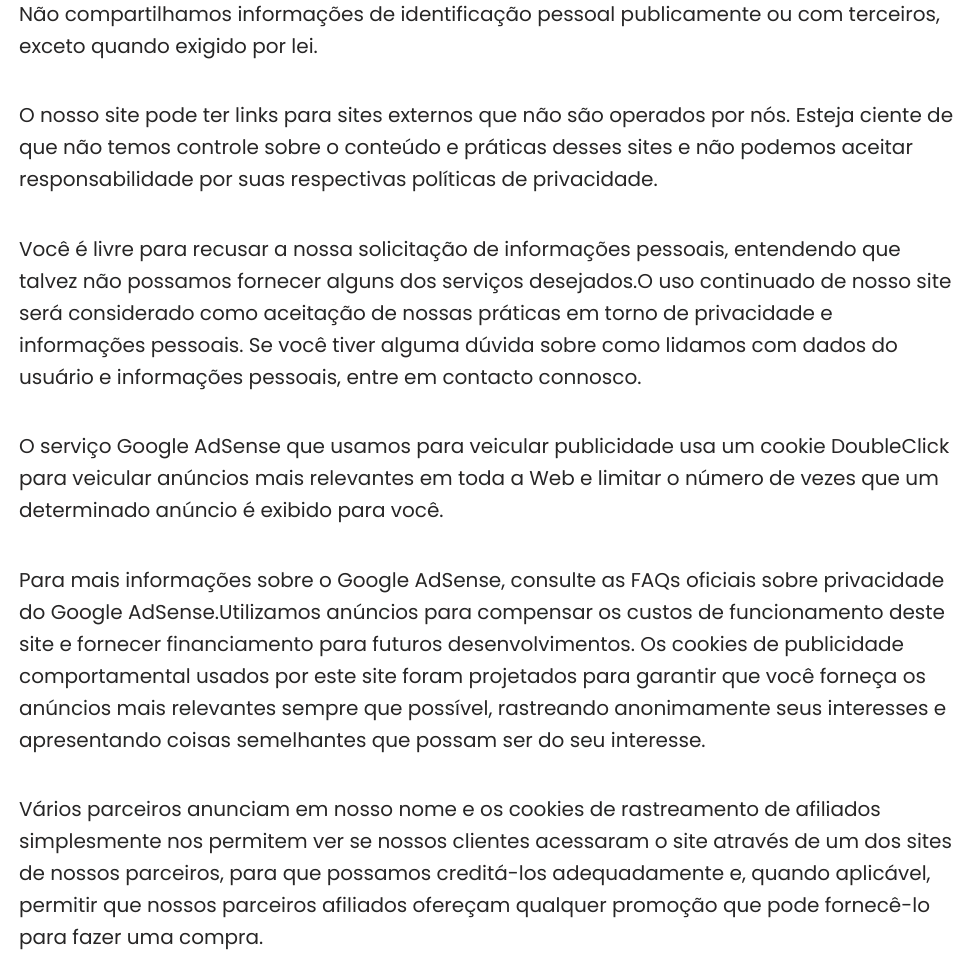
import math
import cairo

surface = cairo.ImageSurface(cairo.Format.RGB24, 974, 980)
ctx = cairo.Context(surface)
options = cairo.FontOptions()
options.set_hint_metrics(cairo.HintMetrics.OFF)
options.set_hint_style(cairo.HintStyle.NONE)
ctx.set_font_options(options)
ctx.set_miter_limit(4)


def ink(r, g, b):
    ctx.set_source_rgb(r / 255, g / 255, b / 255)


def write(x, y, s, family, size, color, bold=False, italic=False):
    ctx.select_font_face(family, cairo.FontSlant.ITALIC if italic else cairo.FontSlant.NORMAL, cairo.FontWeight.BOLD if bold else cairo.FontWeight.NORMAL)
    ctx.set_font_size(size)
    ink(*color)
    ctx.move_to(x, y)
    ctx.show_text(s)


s1 = dict(family="Poppins", size=20, color=(39, 38, 38))

ink(255, 255, 255)
ctx.paint()
write(19, 21, "Não compartilhamos informações de identificação pessoal publicamente ou com terceiros,", **s1)
write(19, 53, "exceto quando exigido por lei.", **s1)
write(19, 122, "O nosso site pode ter links para sites externos que não são operados por nós. Esteja ciente de", **s1)
write(19, 154, "que não temos controle sobre o conteúdo e práticas desses sites e não podemos aceitar", **s1)
write(19, 186, "responsabilidade por suas respectivas políticas de privacidade.", **s1)
write(19, 256, "Você é livre para recusar a nossa solicitação de informações pessoais, entendendo que", **s1)
write(19, 288, "talvez não possamos fornecer alguns dos serviços desejados.O uso continuado de nosso site", **s1)
write(19, 320, "será considerado como aceitação de nossas práticas em torno de privacidade e", **s1)
write(19, 352, "informações pessoais. Se você tiver alguma dúvida sobre como lidamos com dados do", **s1)
write(19, 384, "usuário e informações pessoais, entre em contacto connosco.", **s1)
write(19, 453, "O serviço Google AdSense que usamos para veicular publicidade usa um cookie DoubleClick", **s1)
write(19, 485, "para veicular anúncios mais relevantes em toda a Web e limitar o número de vezes que um", **s1)
write(19, 517, "determinado anúncio é exibido para você.", **s1)
write(19, 587, "Para mais informações sobre o Google AdSense, consulte as FAQs oficiais sobre privacidade", **s1)
write(19, 619, "do Google AdSense.Utilizamos anúncios para compensar os custos de funcionamento deste", **s1)
write(19, 651, "site e fornecer financiamento para futuros desenvolvimentos. Os cookies de publicidade", **s1)
write(19, 683, "comportamental usados por este site foram projetados para garantir que você forneça os", **s1)
write(19, 715, "anúncios mais relevantes sempre que possível, rastreando anonimamente seus interesses e", **s1)
write(19, 747, "apresentando coisas semelhantes que possam ser do seu interesse.", **s1)
write(19, 816, "Vários parceiros anunciam em nosso nome e os cookies de rastreamento de afiliados", **s1)
write(19, 848, "simplesmente nos permitem ver se nossos clientes acessaram o site através de um dos sites", **s1)
write(19, 880, "de nossos parceiros, para que possamos creditá-los adequadamente e, quando aplicável,", **s1)
write(19, 912, "permitir que nossos parceiros afiliados ofereçam qualquer promoção que pode fornecê-lo", **s1)
write(19, 944, "para fazer uma compra.", **s1)
surface.write_to_png("screenshot.png")
